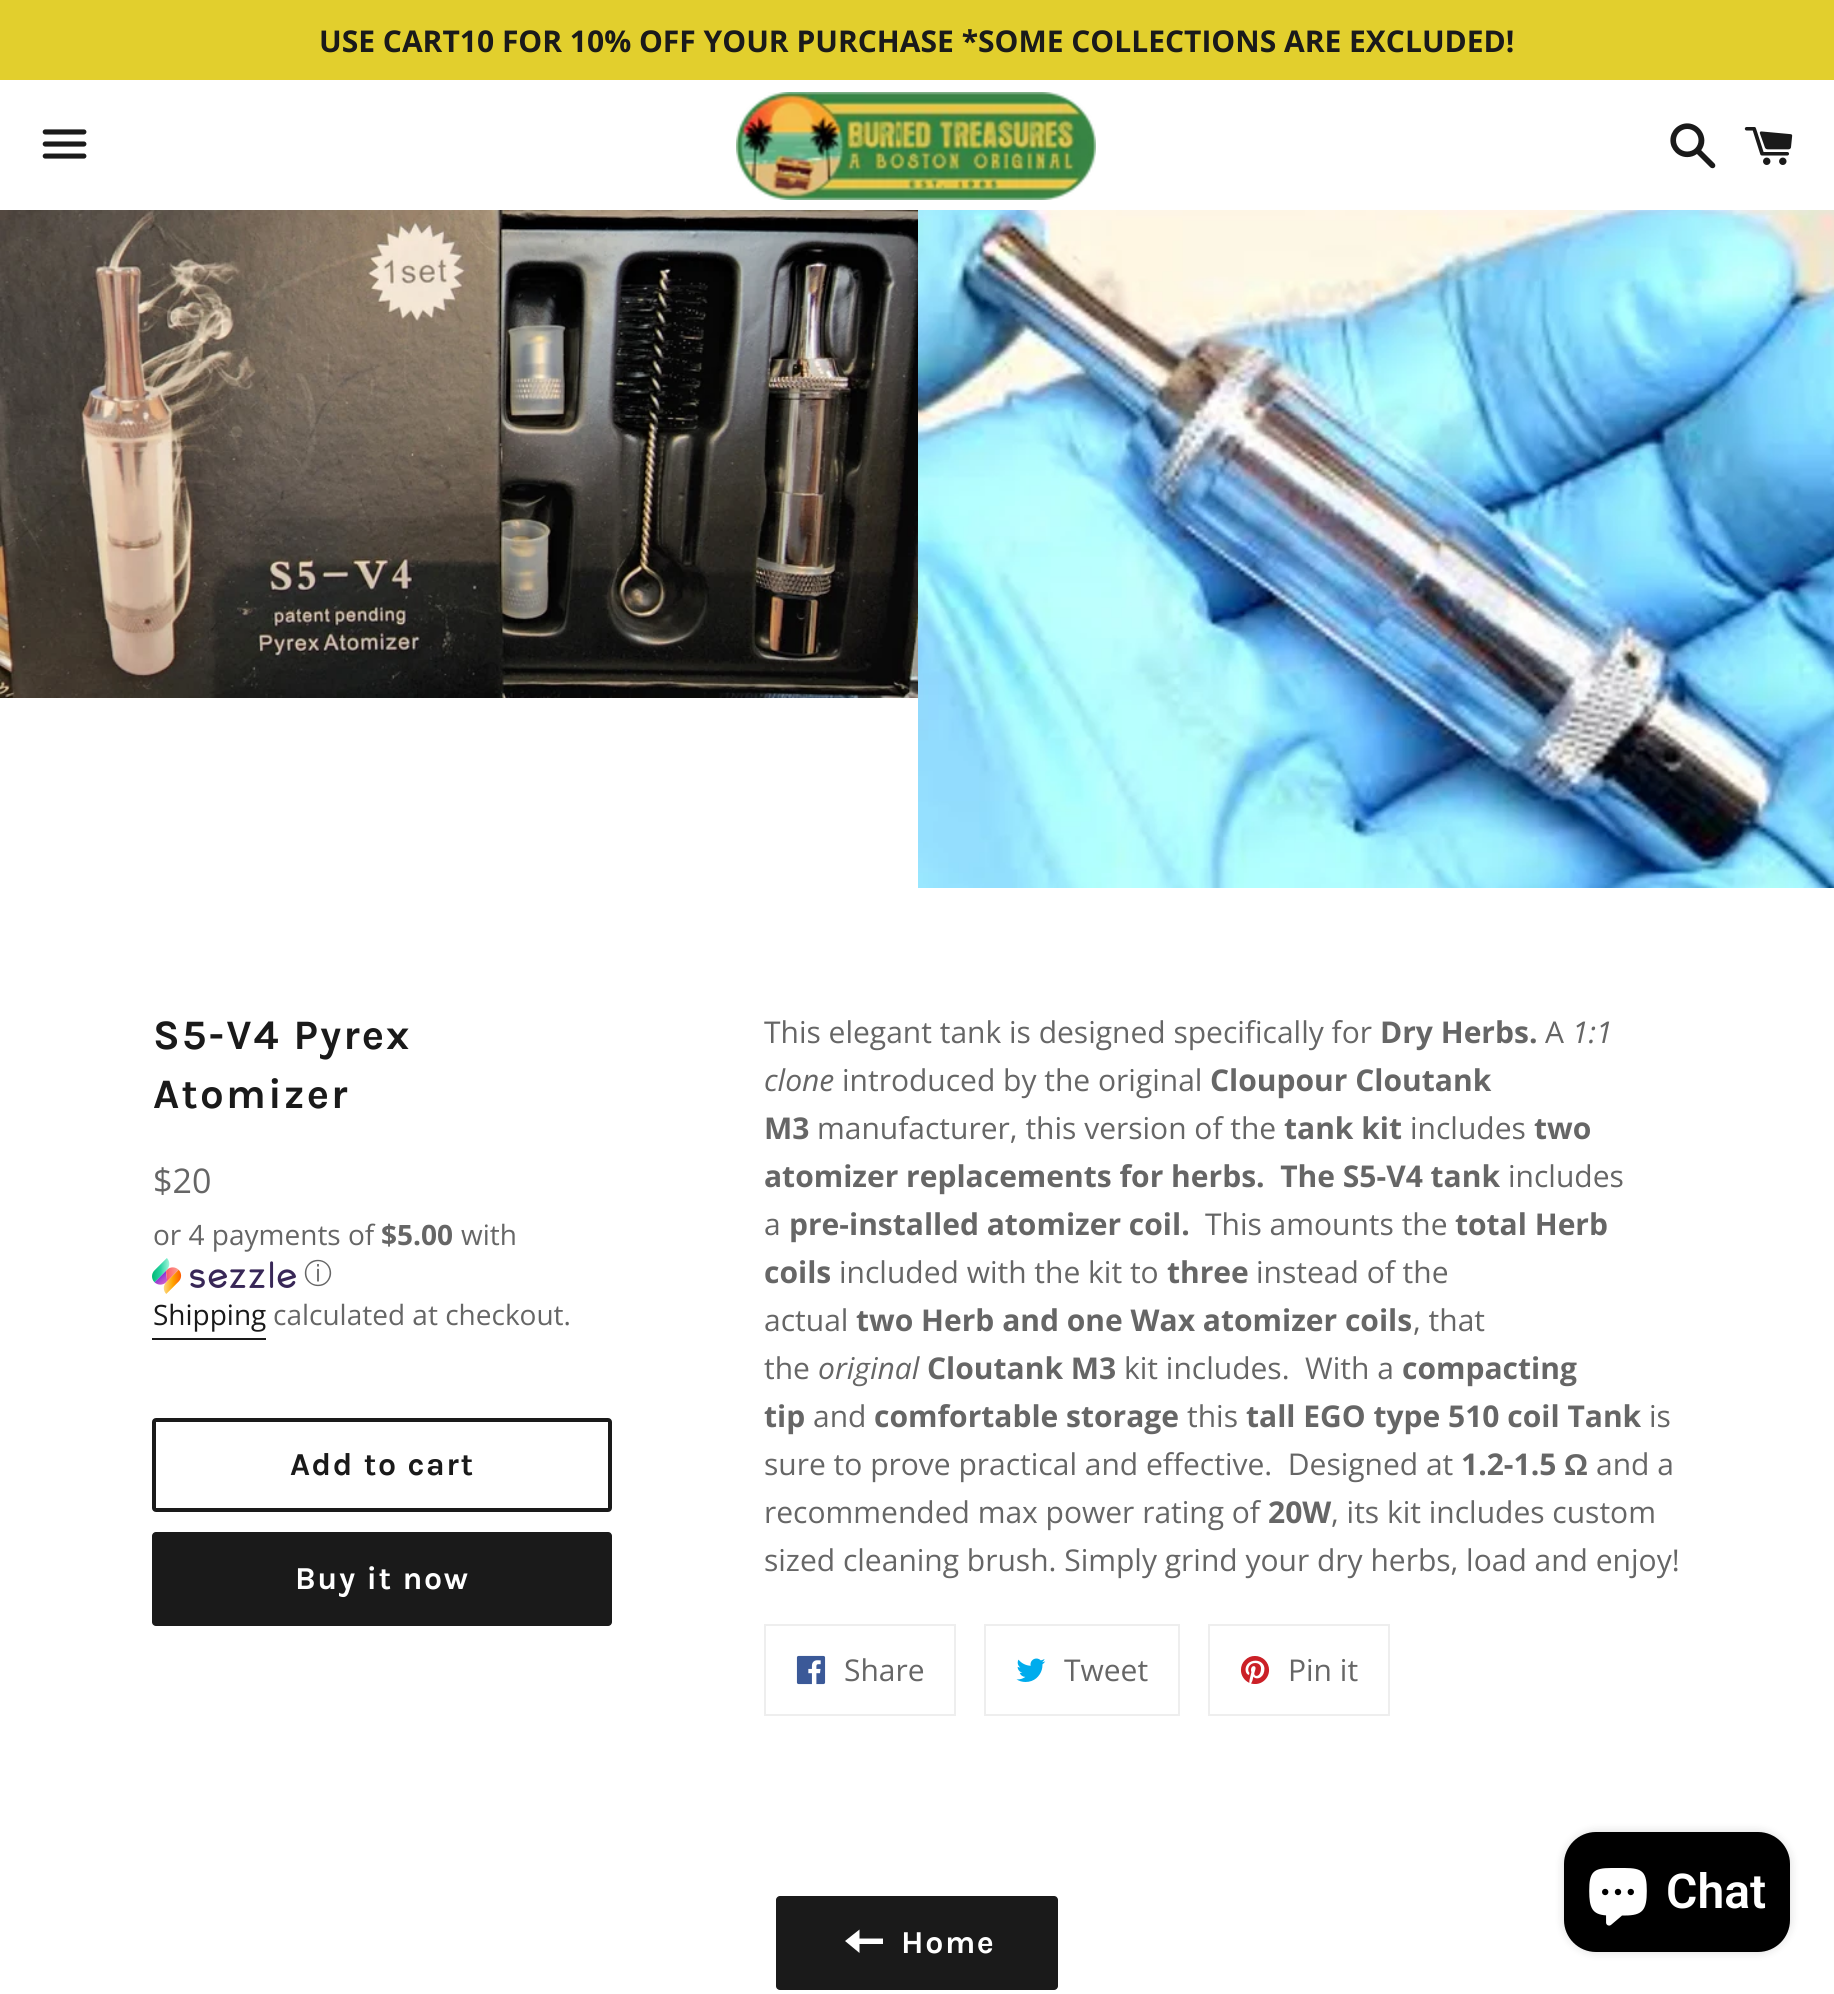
import math
import cairo

surface = cairo.ImageSurface(cairo.Format.RGB24, 1834, 1994)
ctx = cairo.Context(surface)
options = cairo.FontOptions()
options.set_hint_metrics(cairo.HintMetrics.OFF)
options.set_hint_style(cairo.HintStyle.NONE)
ctx.set_font_options(options)
ctx.set_miter_limit(4)


def ink(r, g, b):
    ctx.set_source_rgb(r / 255, g / 255, b / 255)


def write(x, y, s, family, size, color, bold=False, italic=False):
    ctx.select_font_face(family, cairo.FontSlant.ITALIC if italic else cairo.FontSlant.NORMAL, cairo.FontWeight.BOLD if bold else cairo.FontWeight.NORMAL)
    ctx.set_font_size(size)
    ink(*color)
    ctx.move_to(x, y)
    ctx.show_text(s)


def write_spaced(x, y, s, letter, word):
    ctx.move_to(x, y)
    for ch in s:
        ctx.show_text(ch)
        ctx.rel_move_to(letter + word * (ch == ' '), 0)


def block(x, y, w, h, *color):
    ink(*color)
    ctx.rectangle(x, y, w, h)
    ctx.fill()


def round_path(x, y, w, h, r):
    ctx.new_sub_path()
    for i, (u, v) in enumerate([(x + w - r, y + h - r), (x + r, y + h - r), (x + r, y + r), (x + w - r, y + r)]):
        ctx.arc(u, v, r, i * math.pi / 2, (i + 1) * math.pi / 2)
    ctx.close_path()


def blur_box(x, y, w, h, r, blur, alpha):
    ctx.push_group_with_content(cairo.Content.ALPHA)
    ctx.set_operator(cairo.Operator.SOURCE)
    for i in range(15, -16, -2):
        e = blur * i / 6
        if min(w, h) + 2 * e > 0:
            ctx.set_source_rgba(0, 0, 0, alpha * math.erfc((i - 1) / 8.5) / 2)
            round_path(x - e, y - e, w + 2 * e, h + 2 * e, max(0, min(r + e + blur * .6, min(w, h) / 2 + e)))
            ctx.fill()
    ctx.mask(ctx.pop_group())


def paste(path, x, y, w, h):
    ctx.save()
    ctx.set_source_surface(cairo.ImageSurface.create_from_png(path), x, y)
    ctx.rectangle(x, y, w, h)
    ctx.fill()
    ctx.restore()


s1 = dict(family="Open Sans", size=30, color=(26, 26, 26), bold=True)
s2 = dict(family="Open Sans", size=34, color=(102, 102, 102))
s3 = dict(family="Open Sans", size=28, color=(102, 102, 102))
s4 = dict(family="Open Sans", size=28, color=(102, 102, 102), bold=True)
s5 = dict(family="WenQuanYi Zen Hei Medium", size=28, color=(102, 102, 102))
s6 = dict(family="Open Sans", size=28, color=(26, 26, 26))
s7 = dict(family="Open Sans", size=30, color=(102, 102, 102))
s8 = dict(family="Open Sans", size=30, color=(102, 102, 102), bold=True)
s9 = dict(family="Open Sans", size=30, color=(102, 102, 102), italic=True)
s10 = dict(family="Liberation Sans", size=30, color=(102, 102, 102), bold=True)
s11 = dict(family="Roboto SemiBold", size=48, color=(255, 255, 255))

ink(255, 255, 255)
ctx.paint()
block(0, 0, 1834, 80, 226, 207, 45)
write(319, 52, "USE CART10 FOR 10% OFF YOUR PURCHASE *SOME COLLECTIONS ARE EXCLUDED!", **s1)
paste("pic1.png", 42, 129, 45, 30)
paste("pic2.png", 736, 92, 360, 108)
paste("pic3.png", 1670, 123, 46, 46)
paste("pic4.png", 1744, 127, 49, 38)
paste("pic5.png", 0, 210, 918, 488)
paste("pic6.png", 918, 210, 916, 678)
ctx.select_font_face("Karla", cairo.FontSlant.NORMAL, cairo.FontWeight.BOLD)
ctx.set_font_size(42)
write_spaced(153, 1049, "S5-V4 Pyrex", 2.1, 0)
write_spaced(153, 1108, "Atomizer", 2.1, 0)
write(153, 1193, "$20", **s2)
write(153, 1245, "or 4 payments of", **s3)
write(381, 1245, "$5.00", **s4)
write(461, 1245, "with", **s3)
paste("pic7.png", 152, 1258, 144, 36)
write(304, 1283, "ⓘ", **s5)
write(153, 1325, "Shipping", **s6)
block(152, 1338, 114, 2, 26, 26, 26)
write(273, 1325, "calculated at checkout.", **s3)
round_path(154, 1420, 456, 90, 2)
ink(26, 26, 26)
ctx.set_line_width(4)
ctx.stroke()
ctx.select_font_face("Karla", cairo.FontSlant.NORMAL, cairo.FontWeight.BOLD)
ctx.set_font_size(32)
write_spaced(290, 1475, "Add to cart", 1.6, 0)
round_path(152, 1532, 460, 94, 4)
ctx.fill()
ink(255, 255, 255)
write_spaced(295, 1589, "Buy it now", 1.6, 0)
write(764, 1043, "This elegant tank is designed specifically for", **s7)
write(1380, 1043, "Dry Herbs.", **s8)
write(1545, 1043, "A", **s7)
write(1572, 1043, "1:1", **s9)
write(764, 1091, "clone", **s9)
write(842, 1091, "introduced by the original", **s7)
write(1210, 1091, "Cloupour Cloutank", **s8)
write(764, 1139, "M3", **s8)
write(817, 1139, "manufacturer, this version of the", **s7)
write(1284, 1139, "tank kit", **s8)
write(1410, 1139, "includes", **s7)
write(1534, 1139, "two", **s8)
write(764, 1187, "atomizer replacements for herbs.  The S5-V4 tank", **s8)
write(1508, 1187, "includes", **s7)
write(764, 1235, "a", **s7)
write(789, 1235, "pre-installed atomizer coil.", **s8)
write(1205, 1235, "This amounts the", **s7)
write(1455, 1235, "total Herb", **s8)
write(764, 1283, "coils", **s8)
write(839, 1283, "included with the kit to", **s7)
write(1167, 1283, "three", **s8)
write(1256, 1283, "instead of the", **s7)
write(764, 1331, "actual", **s7)
write(856, 1331, "two Herb and one Wax atomizer coils", **s8)
write(1413, 1331, ", that", **s7)
write(764, 1379, "the", **s7)
write(818, 1379, "original", **s9)
write(927, 1379, "Cloutank M3", **s8)
write(1124, 1379, "kit includes.  With a", **s7)
write(1402, 1379, "compacting", **s8)
write(764, 1427, "tip", **s8)
write(813, 1427, "and", **s7)
write(874, 1427, "comfortable storage", **s8)
write(1187, 1427, "this", **s7)
write(1246, 1427, "tall EGO type 510 coil Tank", **s8)
write(1649, 1427, "is", **s7)
write(764, 1475, "sure to prove practical and effective.  Designed at", **s7)
write(1461, 1475, "1.2-1.5", **s8)
write(1564, 1475, "Ω", **s10)
write(1596, 1475, "and a", **s7)
write(764, 1523, "recommended max power rating of", **s7)
write(1268, 1523, "20W", **s8)
write(1331, 1523, ", its kit includes custom", **s7)
write(764, 1571, "sized cleaning brush. Simply grind your dry herbs, load and enjoy!", **s7)
ctx.rectangle(765, 1625, 190, 90)
ink(238, 238, 238)
ctx.set_line_width(2)
ctx.stroke()
paste("pic8.png", 796, 1655, 30, 30)
write(844, 1681, "Share", **s7)
ctx.rectangle(985, 1625, 194, 90)
ink(238, 238, 238)
ctx.stroke()
paste("pic9.png", 1016, 1658, 30, 24)
write(1064, 1681, "Tweet", **s7)
ctx.rectangle(1209, 1625, 180, 90)
ink(238, 238, 238)
ctx.stroke()
paste("pic10.png", 1240, 1656, 30, 28)
write(1288, 1681, "Pin it", **s7)
ink(26, 26, 26)
round_path(776, 1896, 282, 94, 4)
ctx.fill()
ink(255, 255, 255)
ctx.new_path()
ctx.move_to(859.5, 1938.5)
ctx.line_to(859.5, 1929.5)
ctx.line_to(845, 1941)
ctx.line_to(859.5, 1953)
ctx.line_to(859.5, 1944)
ctx.line_to(883, 1944)
ctx.line_to(883, 1938.5)
ctx.close_path()
ctx.fill()
ctx.select_font_face("Karla", cairo.FontSlant.NORMAL, cairo.FontWeight.BOLD)
ctx.set_font_size(32)
write_spaced(901, 1953, "Home", 1.6, 0)
ink(0, 0, 0)
blur_box(1564, 1832, 226, 120, 32, 5, 0.15)
ink(0, 0, 0)
round_path(1564, 1832, 226, 120, 32)
ctx.fill()
paste("pic11.png", 1589, 1868, 58, 58)
write(1666, 1908, "Chat", **s11)
surface.write_to_png("screenshot.png")
